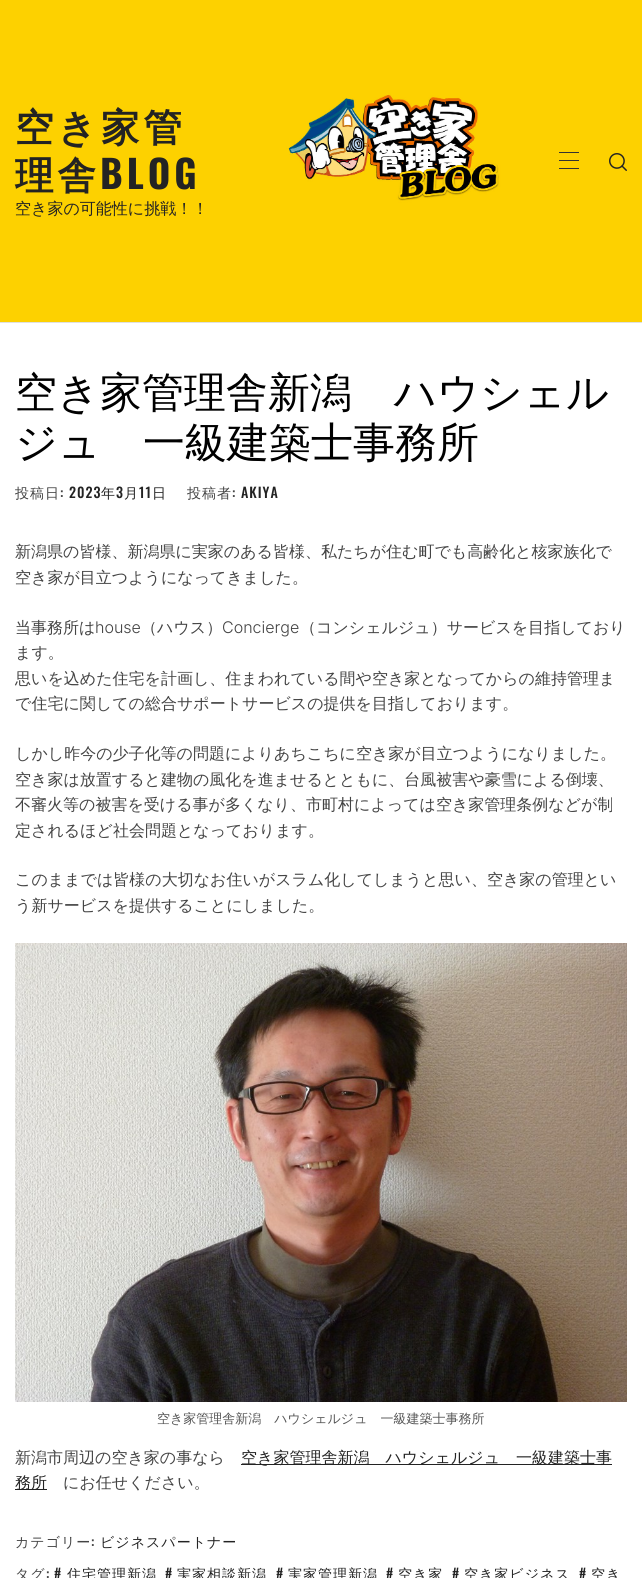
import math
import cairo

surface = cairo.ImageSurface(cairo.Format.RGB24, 642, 1578)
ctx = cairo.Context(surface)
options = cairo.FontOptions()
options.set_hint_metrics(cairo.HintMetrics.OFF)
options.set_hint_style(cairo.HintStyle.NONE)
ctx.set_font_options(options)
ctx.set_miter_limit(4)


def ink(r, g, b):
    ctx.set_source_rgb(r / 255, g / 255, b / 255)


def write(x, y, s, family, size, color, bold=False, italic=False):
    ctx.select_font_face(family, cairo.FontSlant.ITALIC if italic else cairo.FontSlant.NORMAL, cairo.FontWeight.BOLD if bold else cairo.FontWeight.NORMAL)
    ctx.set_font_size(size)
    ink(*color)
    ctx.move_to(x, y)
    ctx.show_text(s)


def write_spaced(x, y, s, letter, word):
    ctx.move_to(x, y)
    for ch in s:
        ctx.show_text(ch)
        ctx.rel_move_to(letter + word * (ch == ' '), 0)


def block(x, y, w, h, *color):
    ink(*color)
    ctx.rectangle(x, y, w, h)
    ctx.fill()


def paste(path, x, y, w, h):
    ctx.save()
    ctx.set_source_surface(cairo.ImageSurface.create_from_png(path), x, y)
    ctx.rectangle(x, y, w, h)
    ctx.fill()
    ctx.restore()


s1 = dict(family="WenQuanYi Zen Hei Medium", size=16, color=(35, 35, 35))
s2 = dict(family="WenQuanYi Zen Hei Medium", size=42, color=(0, 0, 0))
s3 = dict(family="WenQuanYi Zen Hei Medium", size=16, color=(68, 68, 68))
s4 = dict(family="Inter Light", size=16, color=(68, 68, 68))
s5 = dict(family="WenQuanYi Zen Hei Medium", size=13, color=(85, 85, 85))

ink(255, 255, 255)
ctx.paint()
paste("pic1.png", 0, 0, 642, 322)
block(0, 322, 642, 1, 224, 224, 224)
ctx.select_font_face("WenQuanYi Zen Hei", cairo.FontSlant.NORMAL, cairo.FontWeight.BOLD)
ctx.set_font_size(38.5)
ink(35, 35, 35)
write_spaced(15, 141, "空き家管", 4, 0)
write_spaced(15, 189, "理舎", 4, 0)
ctx.select_font_face("Oswald", cairo.FontSlant.NORMAL, cairo.FontWeight.BOLD)
write_spaced(100, 189, "BLOG", 4, 0)
write(15, 214, "空き家の可能性に挑戦！！", **s1)
block(559, 160, 20, 1, 51, 51, 51)
block(559, 152, 20, 1, 51, 51, 51)
block(559, 168, 20, 1, 51, 51, 51)
paste("pic2.png", 609, 153, 18, 18)
write(15, 407, "空き家管理舎新潟　ハウシェル", **s2)
write(15, 457, "ジュ　一級建築士事務所", **s2)
ctx.set_font_size(14)
ink(68, 68, 68)
write_spaced(15, 498, "投稿日", 1, 0)
ctx.select_font_face("Oswald Medium")
write_spaced(60, 498, ":", 1, 0)
ink(35, 35, 35)
write_spaced(69, 498, "2023", 1, 0)
ctx.select_font_face("WenQuanYi Zen Hei Medium")
write_spaced(101, 498, "年", 1, 0)
ctx.select_font_face("Oswald Medium")
write_spaced(116, 498, "3", 1, 0)
ctx.select_font_face("WenQuanYi Zen Hei Medium")
write_spaced(124, 498, "月", 1, 0)
ctx.select_font_face("Oswald Medium")
write_spaced(139, 498, "11", 1, 0)
ctx.select_font_face("WenQuanYi Zen Hei Medium")
write_spaced(152, 498, "日", 1, 0)
ink(68, 68, 68)
write_spaced(187, 498, "投稿者", 1, 0)
ctx.select_font_face("Oswald Medium")
write_spaced(232, 498, ":", 1, 0)
ink(35, 35, 35)
write_spaced(241, 498, "AKIYA", 1, 0)
write(15, 557, "新潟県の皆様、新潟県に実家のある皆様、私たちが住む町でも高齢化と核家族化で", **s3)
write(15, 583, "空き家が目立つようになってきました。", **s3)
write(15, 633, "当事務所は", **s3)
write(95, 633, "house", **s4)
write(141, 633, "（ハウス）", **s3)
write(222, 633, "Concierge", **s4)
write(300, 633, "（コンシェルジュ）サービスを目指しており", **s3)
write(15, 658, "ます。", **s3)
write(15, 684, "思いを込めた住宅を計画し、住まわれている間や空き家となってからの維持管理ま", **s3)
write(15, 709, "で住宅に関しての総合サポートサービスの提供を目指しております。", **s3)
write(15, 759, "しかし昨今の少子化等の問題によりあちこちに空き家が目立つようになりました。", **s3)
write(15, 785, "空き家は放置すると建物の風化を進ませるとともに、台風被害や豪雪による倒壊、", **s3)
write(15, 810, "不審火等の被害を受ける事が多くなり、市町村によっては空き家管理条例などが制", **s3)
write(15, 836, "定されるほど社会問題となっております。", **s3)
write(15, 885, "このままでは皆様の大切なお住いがスラム化してしまうと思い、空き家の管理とい", **s3)
write(15, 911, "う新サービスを提供することにしました。", **s3)
paste("pic3.png", 15, 943, 612, 459)
write(157, 1423, "空き家管理舎新潟　ハウシェルジュ　一級建築士事務所", **s5)
write(15, 1463, "新潟市周辺の空き家の事なら", **s3)
block(241, 1464, 371, 1, 35, 35, 35)
write(241, 1463, "空き家管理舎新潟　ハウシェルジュ　一級建築士事", **s1)
block(15, 1489, 32, 1, 35, 35, 35)
write(15, 1488, "務所", **s1)
write(63, 1488, "にお任せください。", **s3)
ctx.set_font_size(14)
write_spaced(15, 1547, "カテゴリー", 1, 0)
ctx.select_font_face("Oswald Medium")
write_spaced(91, 1547, ":", 1, 0)
ctx.select_font_face("WenQuanYi Zen Hei Medium")
ink(35, 35, 35)
write_spaced(100, 1547, "ビジネスパートナー", 1, 0)
ink(68, 68, 68)
write_spaced(15, 1579, "タグ", 1, 0)
ctx.select_font_face("Oswald Medium")
write_spaced(46, 1579, ":", 1, 0)
ink(35, 35, 35)
write_spaced(54, 1579, "#", 1, 0)
ctx.select_font_face("WenQuanYi Zen Hei Medium")
write_spaced(67, 1579, "住宅管理新潟", 1, 0)
ctx.select_font_face("Oswald Medium")
write_spaced(165, 1579, "#", 1, 0)
ctx.select_font_face("WenQuanYi Zen Hei Medium")
write_spaced(177, 1579, "実家相談新潟", 1, 0)
ctx.select_font_face("Oswald Medium")
write_spaced(276, 1579, "#", 1, 0)
ctx.select_font_face("WenQuanYi Zen Hei Medium")
write_spaced(288, 1579, "実家管理新潟", 1, 0)
ctx.select_font_face("Oswald Medium")
write_spaced(386, 1579, "#", 1, 0)
ctx.select_font_face("WenQuanYi Zen Hei Medium")
write_spaced(398, 1579, "空き家", 1, 0)
ctx.select_font_face("Oswald Medium")
write_spaced(452, 1579, "#", 1, 0)
ctx.select_font_face("WenQuanYi Zen Hei Medium")
write_spaced(464, 1579, "空き家ビジネス", 1, 0)
ctx.select_font_face("Oswald Medium")
write_spaced(579, 1579, "#", 1, 0)
ctx.select_font_face("WenQuanYi Zen Hei Medium")
write_spaced(591, 1579, "空き", 1, 0)
surface.write_to_png("screenshot.png")
